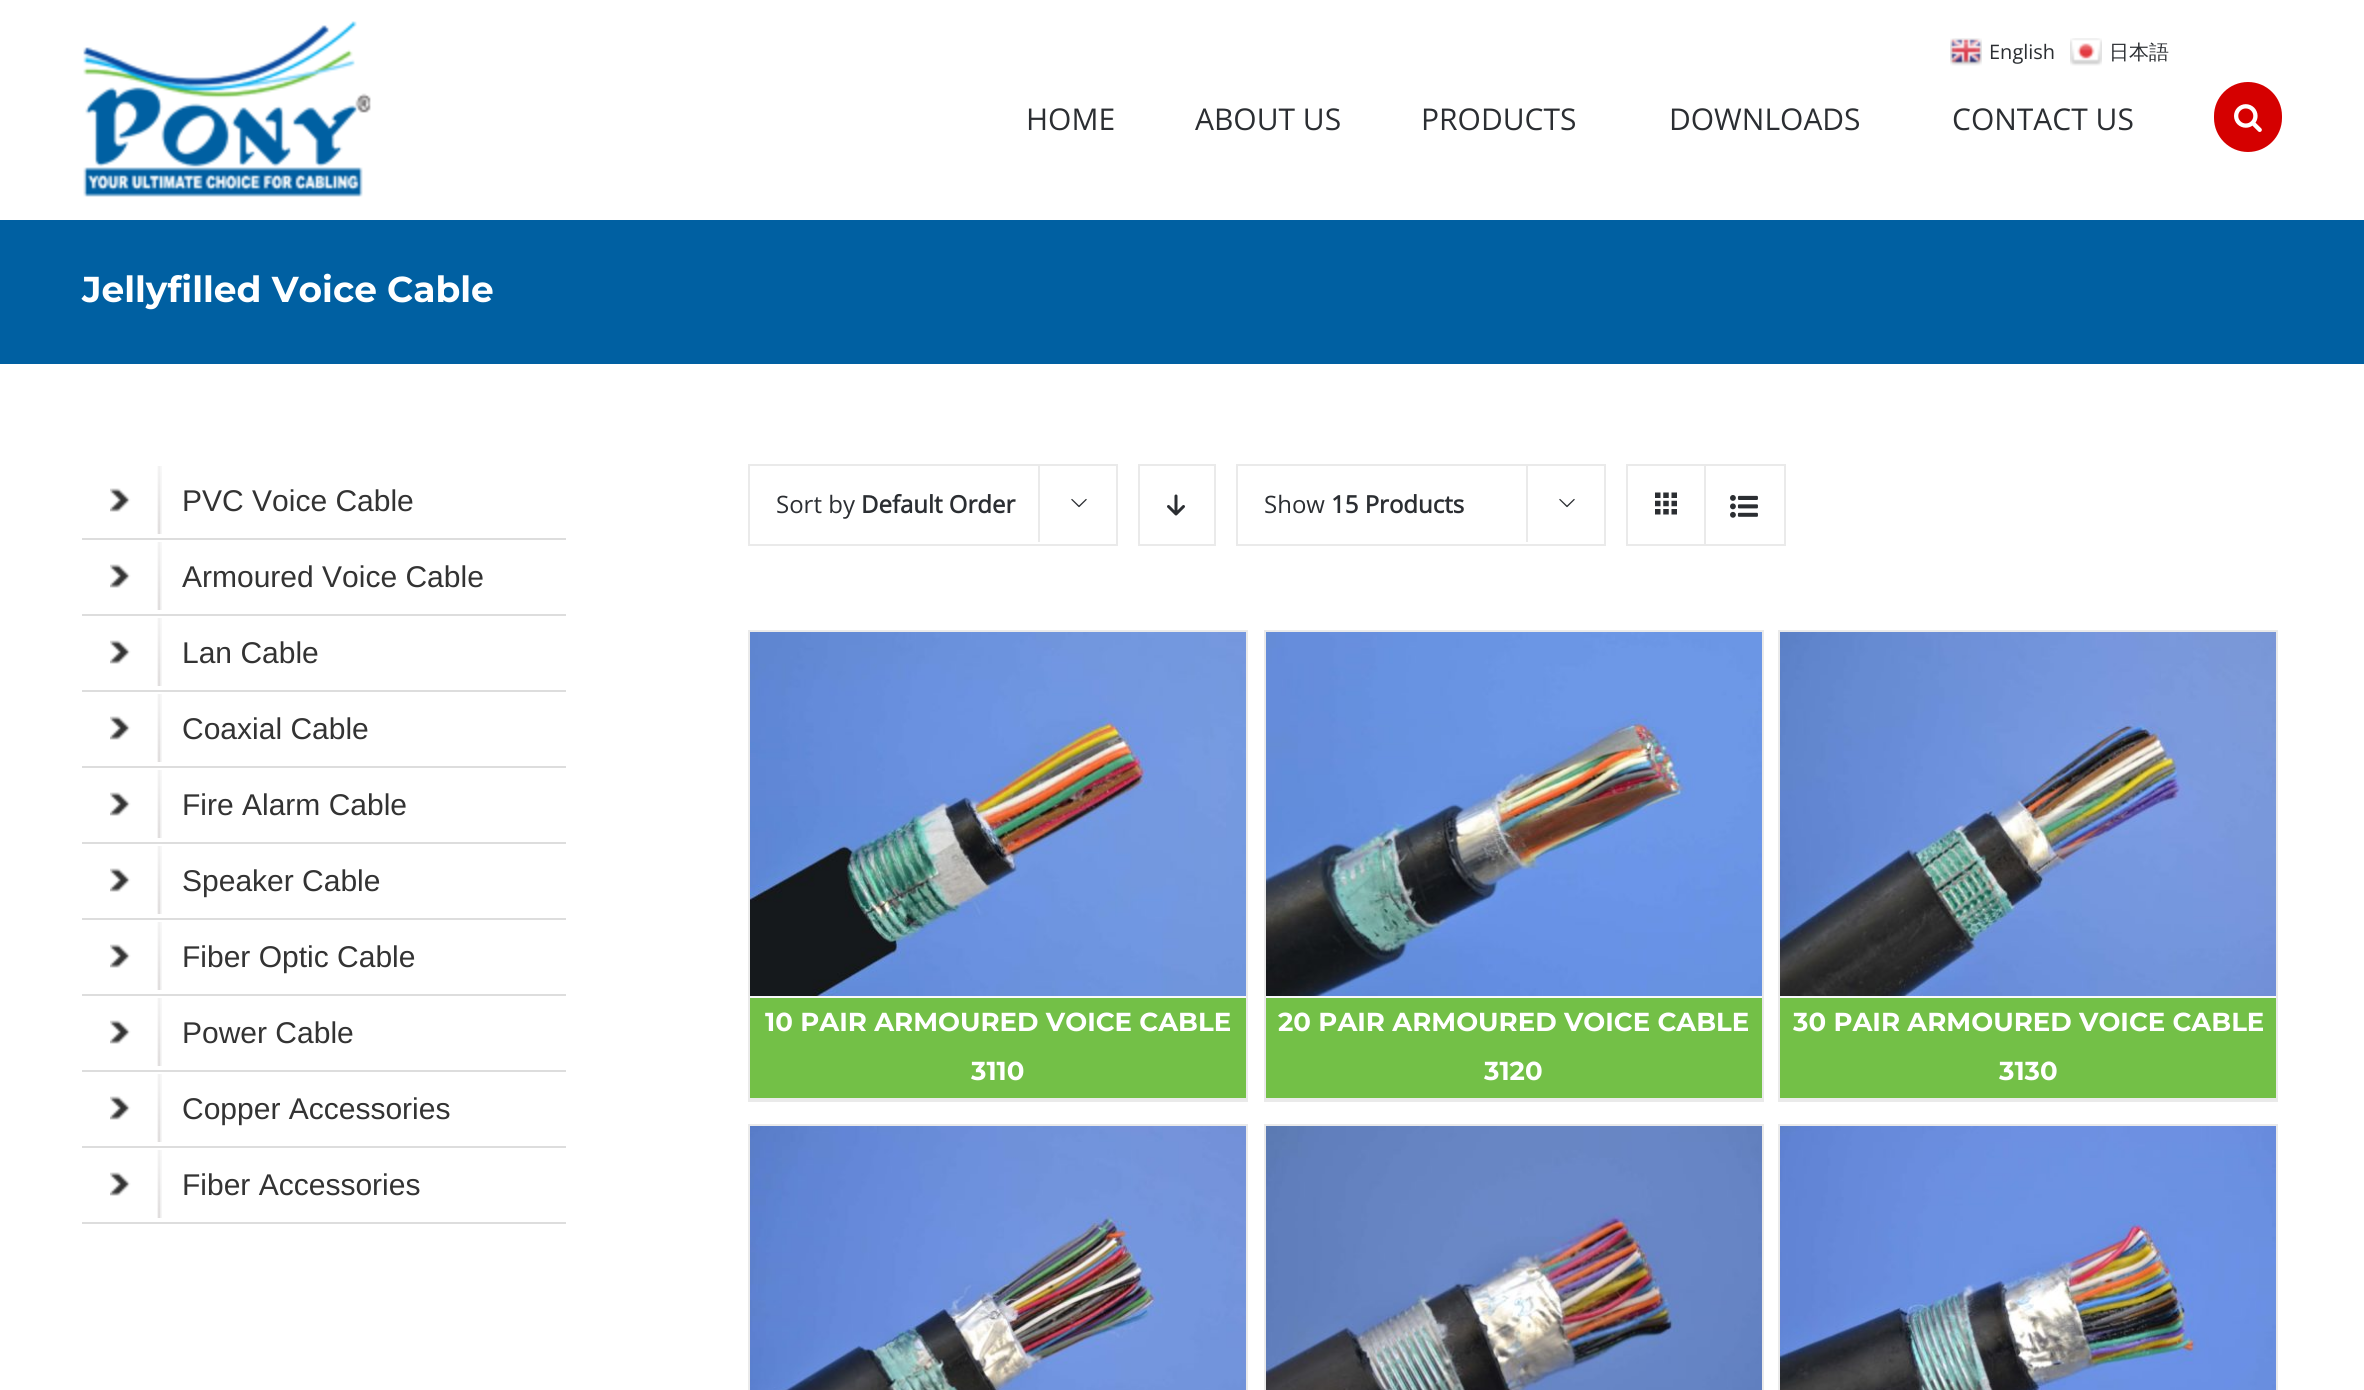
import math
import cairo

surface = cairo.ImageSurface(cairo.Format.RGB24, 2364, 1390)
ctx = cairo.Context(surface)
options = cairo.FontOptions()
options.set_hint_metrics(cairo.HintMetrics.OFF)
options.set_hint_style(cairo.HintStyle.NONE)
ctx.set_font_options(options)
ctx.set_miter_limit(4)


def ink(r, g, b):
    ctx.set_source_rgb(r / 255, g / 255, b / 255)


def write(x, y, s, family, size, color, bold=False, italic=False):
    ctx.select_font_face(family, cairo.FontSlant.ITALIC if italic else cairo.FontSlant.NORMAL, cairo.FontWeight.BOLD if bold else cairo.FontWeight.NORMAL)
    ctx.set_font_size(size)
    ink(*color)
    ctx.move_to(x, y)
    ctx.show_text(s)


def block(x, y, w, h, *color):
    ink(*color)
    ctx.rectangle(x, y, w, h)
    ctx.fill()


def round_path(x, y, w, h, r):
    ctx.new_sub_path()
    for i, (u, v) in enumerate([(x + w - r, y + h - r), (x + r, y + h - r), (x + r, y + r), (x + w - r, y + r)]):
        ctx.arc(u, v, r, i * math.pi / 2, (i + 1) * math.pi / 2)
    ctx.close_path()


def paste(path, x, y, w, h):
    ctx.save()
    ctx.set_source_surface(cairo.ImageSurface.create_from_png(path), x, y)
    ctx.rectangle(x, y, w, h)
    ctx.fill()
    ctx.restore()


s1 = dict(family="Open Sans", size=20, color=(43, 46, 50))
s2 = dict(family="WenQuanYi Zen Hei Medium", size=20, color=(43, 46, 50))
s3 = dict(family="Open Sans", size=30, color=(43, 46, 50))
s4 = dict(family="Montserrat Thin", size=36, color=(255, 255, 255))
s5 = dict(family="Liberation Sans", size=30, color=(51, 51, 51))
s6 = dict(family="Open Sans", size=24, color=(43, 46, 50))
s7 = dict(family="Open Sans", size=24, color=(43, 46, 50), bold=True)
s8 = dict(family="Montserrat Thin", size=26, color=(255, 255, 255))

ink(255, 255, 255)
ctx.paint()
paste("pic1.png", 1950, 38, 32, 28)
write(1989, 59, "English", **s1)
paste("pic2.png", 2070, 38, 32, 28)
write(2109, 59, "日本語", **s2)
paste("pic3.png", 83, 21, 288, 176)
write(1026, 130, "HOME", **s3)
write(1195, 130, "ABOUT US", **s3)
write(1421, 130, "PRODUCTS", **s3)
write(1669, 130, "DOWNLOADS", **s3)
write(1952, 130, "CONTACT US", **s3)
ink(213, 0, 0)
round_path(2214, 82, 68, 70, 34)
ctx.fill()
paste("pic4.png", 2234, 104, 28, 28)
block(0, 220, 2364, 144, 0, 96, 162)
write(82, 302, "Jellyfilled Voice Cable", **s4)
block(82, 538, 484, 2, 221, 221, 221)
paste("pic5.png", 110, 466, 52, 68)
write(182, 511, "PVC Voice Cable", **s5)
block(82, 614, 484, 2, 221, 221, 221)
paste("pic5.png", 110, 542, 52, 68)
write(182, 587, "Armoured Voice Cable", **s5)
block(82, 690, 484, 2, 221, 221, 221)
paste("pic5.png", 110, 618, 52, 68)
write(182, 663, "Lan Cable", **s5)
block(82, 766, 484, 2, 221, 221, 221)
paste("pic5.png", 110, 694, 52, 68)
write(182, 739, "Coaxial Cable", **s5)
block(82, 842, 484, 2, 221, 221, 221)
paste("pic5.png", 110, 770, 52, 68)
write(182, 815, "Fire Alarm Cable", **s5)
block(82, 918, 484, 2, 221, 221, 221)
paste("pic5.png", 110, 846, 52, 68)
write(182, 891, "Speaker Cable", **s5)
block(82, 994, 484, 2, 221, 221, 221)
paste("pic5.png", 110, 922, 52, 68)
write(182, 967, "Fiber Optic Cable", **s5)
block(82, 1070, 484, 2, 221, 221, 221)
paste("pic5.png", 110, 998, 52, 68)
write(182, 1043, "Power Cable", **s5)
block(82, 1146, 484, 2, 221, 221, 221)
paste("pic5.png", 110, 1074, 52, 68)
write(182, 1119, "Copper Accessories", **s5)
block(82, 1222, 484, 2, 221, 221, 221)
paste("pic5.png", 110, 1150, 52, 68)
write(182, 1195, "Fiber Accessories", **s5)
ctx.rectangle(749, 465, 368, 80)
ink(234, 234, 234)
ctx.stroke()
write(776, 513, "Sort by", **s6)
write(861, 513, "Default Order", **s7)
block(1038, 464, 2, 78, 234, 234, 234)
paste("pic6.png", 1071, 498, 16, 10)
ctx.rectangle(1139, 465, 76, 80)
ctx.stroke()
paste("pic7.png", 1167, 494, 18, 22)
ctx.rectangle(1237, 465, 368, 80)
ctx.stroke()
write(1264, 513, "Show", **s6)
write(1331, 513, "15 Products", **s7)
block(1526, 464, 2, 78, 234, 234, 234)
paste("pic6.png", 1559, 498, 16, 10)
ctx.rectangle(1627, 465, 158, 80)
ctx.stroke()
block(1704, 466, 2, 78, 234, 234, 234)
paste("pic8.png", 1655, 492, 22, 23)
paste("pic9.png", 1730, 495, 28, 23)
block(748, 630, 500, 2, 234, 234, 234)
block(1246, 630, 2, 472, 234, 234, 234)
block(748, 1098, 500, 4, 234, 234, 234)
block(748, 630, 2, 472, 234, 234, 234)
gradient = cairo.RadialGradient(0, 0, 0, 0, 0, 1)
gradient.set_matrix(cairo.Matrix(1 / 351, 0, 0, 1 / 259, -1 * 998 / 351, -1 * 815 / 259))
gradient.add_color_stop_rgba(0, 0.996, 1, 1, 1)
gradient.add_color_stop_rgba(1, 0.969, 0.973, 0.976, 1)
ctx.set_source(gradient)
ctx.rectangle(750, 996, 496, 2)
ctx.fill()
paste("pic10.png", 750, 632, 496, 364)
block(750, 998, 496, 100, 115, 192, 71)
write(765, 1031, "10 PAIR ARMOURED VOICE CABLE", **s8)
write(971, 1080, "3110", **s8)
block(1264, 630, 500, 2, 234, 234, 234)
block(1762, 630, 2, 472, 234, 234, 234)
block(1264, 1098, 500, 4, 234, 234, 234)
block(1264, 630, 2, 472, 234, 234, 234)
gradient = cairo.RadialGradient(0, 0, 0, 0, 0, 1)
gradient.set_matrix(cairo.Matrix(1 / 351, 0, 0, 1 / 259, -1 * 1514 / 351, -1 * 815 / 259))
gradient.add_color_stop_rgba(0, 0.996, 1, 1, 1)
gradient.add_color_stop_rgba(1, 0.969, 0.973, 0.976, 1)
ctx.set_source(gradient)
ctx.rectangle(1266, 996, 496, 2)
ctx.fill()
paste("pic11.png", 1266, 632, 496, 364)
block(1266, 998, 496, 100, 115, 192, 71)
write(1278, 1031, "20 PAIR ARMOURED VOICE CABLE", **s8)
write(1484, 1080, "3120", **s8)
block(1778, 630, 500, 2, 234, 234, 234)
block(2276, 630, 2, 472, 234, 234, 234)
block(1778, 1098, 500, 4, 234, 234, 234)
block(1778, 630, 2, 472, 234, 234, 234)
gradient = cairo.RadialGradient(0, 0, 0, 0, 0, 1)
gradient.set_matrix(cairo.Matrix(1 / 351, 0, 0, 1 / 259, -1 * 2028 / 351, -1 * 815 / 259))
gradient.add_color_stop_rgba(0, 0.996, 1, 1, 1)
gradient.add_color_stop_rgba(1, 0.969, 0.973, 0.976, 1)
ctx.set_source(gradient)
ctx.rectangle(1780, 996, 496, 2)
ctx.fill()
paste("pic12.png", 1780, 632, 496, 364)
block(1780, 998, 496, 100, 115, 192, 71)
write(1793, 1031, "30 PAIR ARMOURED VOICE CABLE", **s8)
write(1999, 1080, "3130", **s8)
block(748, 1124, 500, 2, 234, 234, 234)
block(1246, 1124, 2, 266, 234, 234, 234)
block(748, 1124, 2, 266, 234, 234, 234)
paste("pic13.png", 750, 1126, 496, 264)
block(1264, 1124, 500, 2, 234, 234, 234)
block(1762, 1124, 2, 266, 234, 234, 234)
block(1264, 1124, 2, 266, 234, 234, 234)
paste("pic14.png", 1266, 1126, 496, 264)
block(1778, 1124, 500, 2, 234, 234, 234)
block(2276, 1124, 2, 266, 234, 234, 234)
block(1778, 1124, 2, 266, 234, 234, 234)
paste("pic15.png", 1780, 1126, 496, 264)
surface.write_to_png("screenshot.png")
